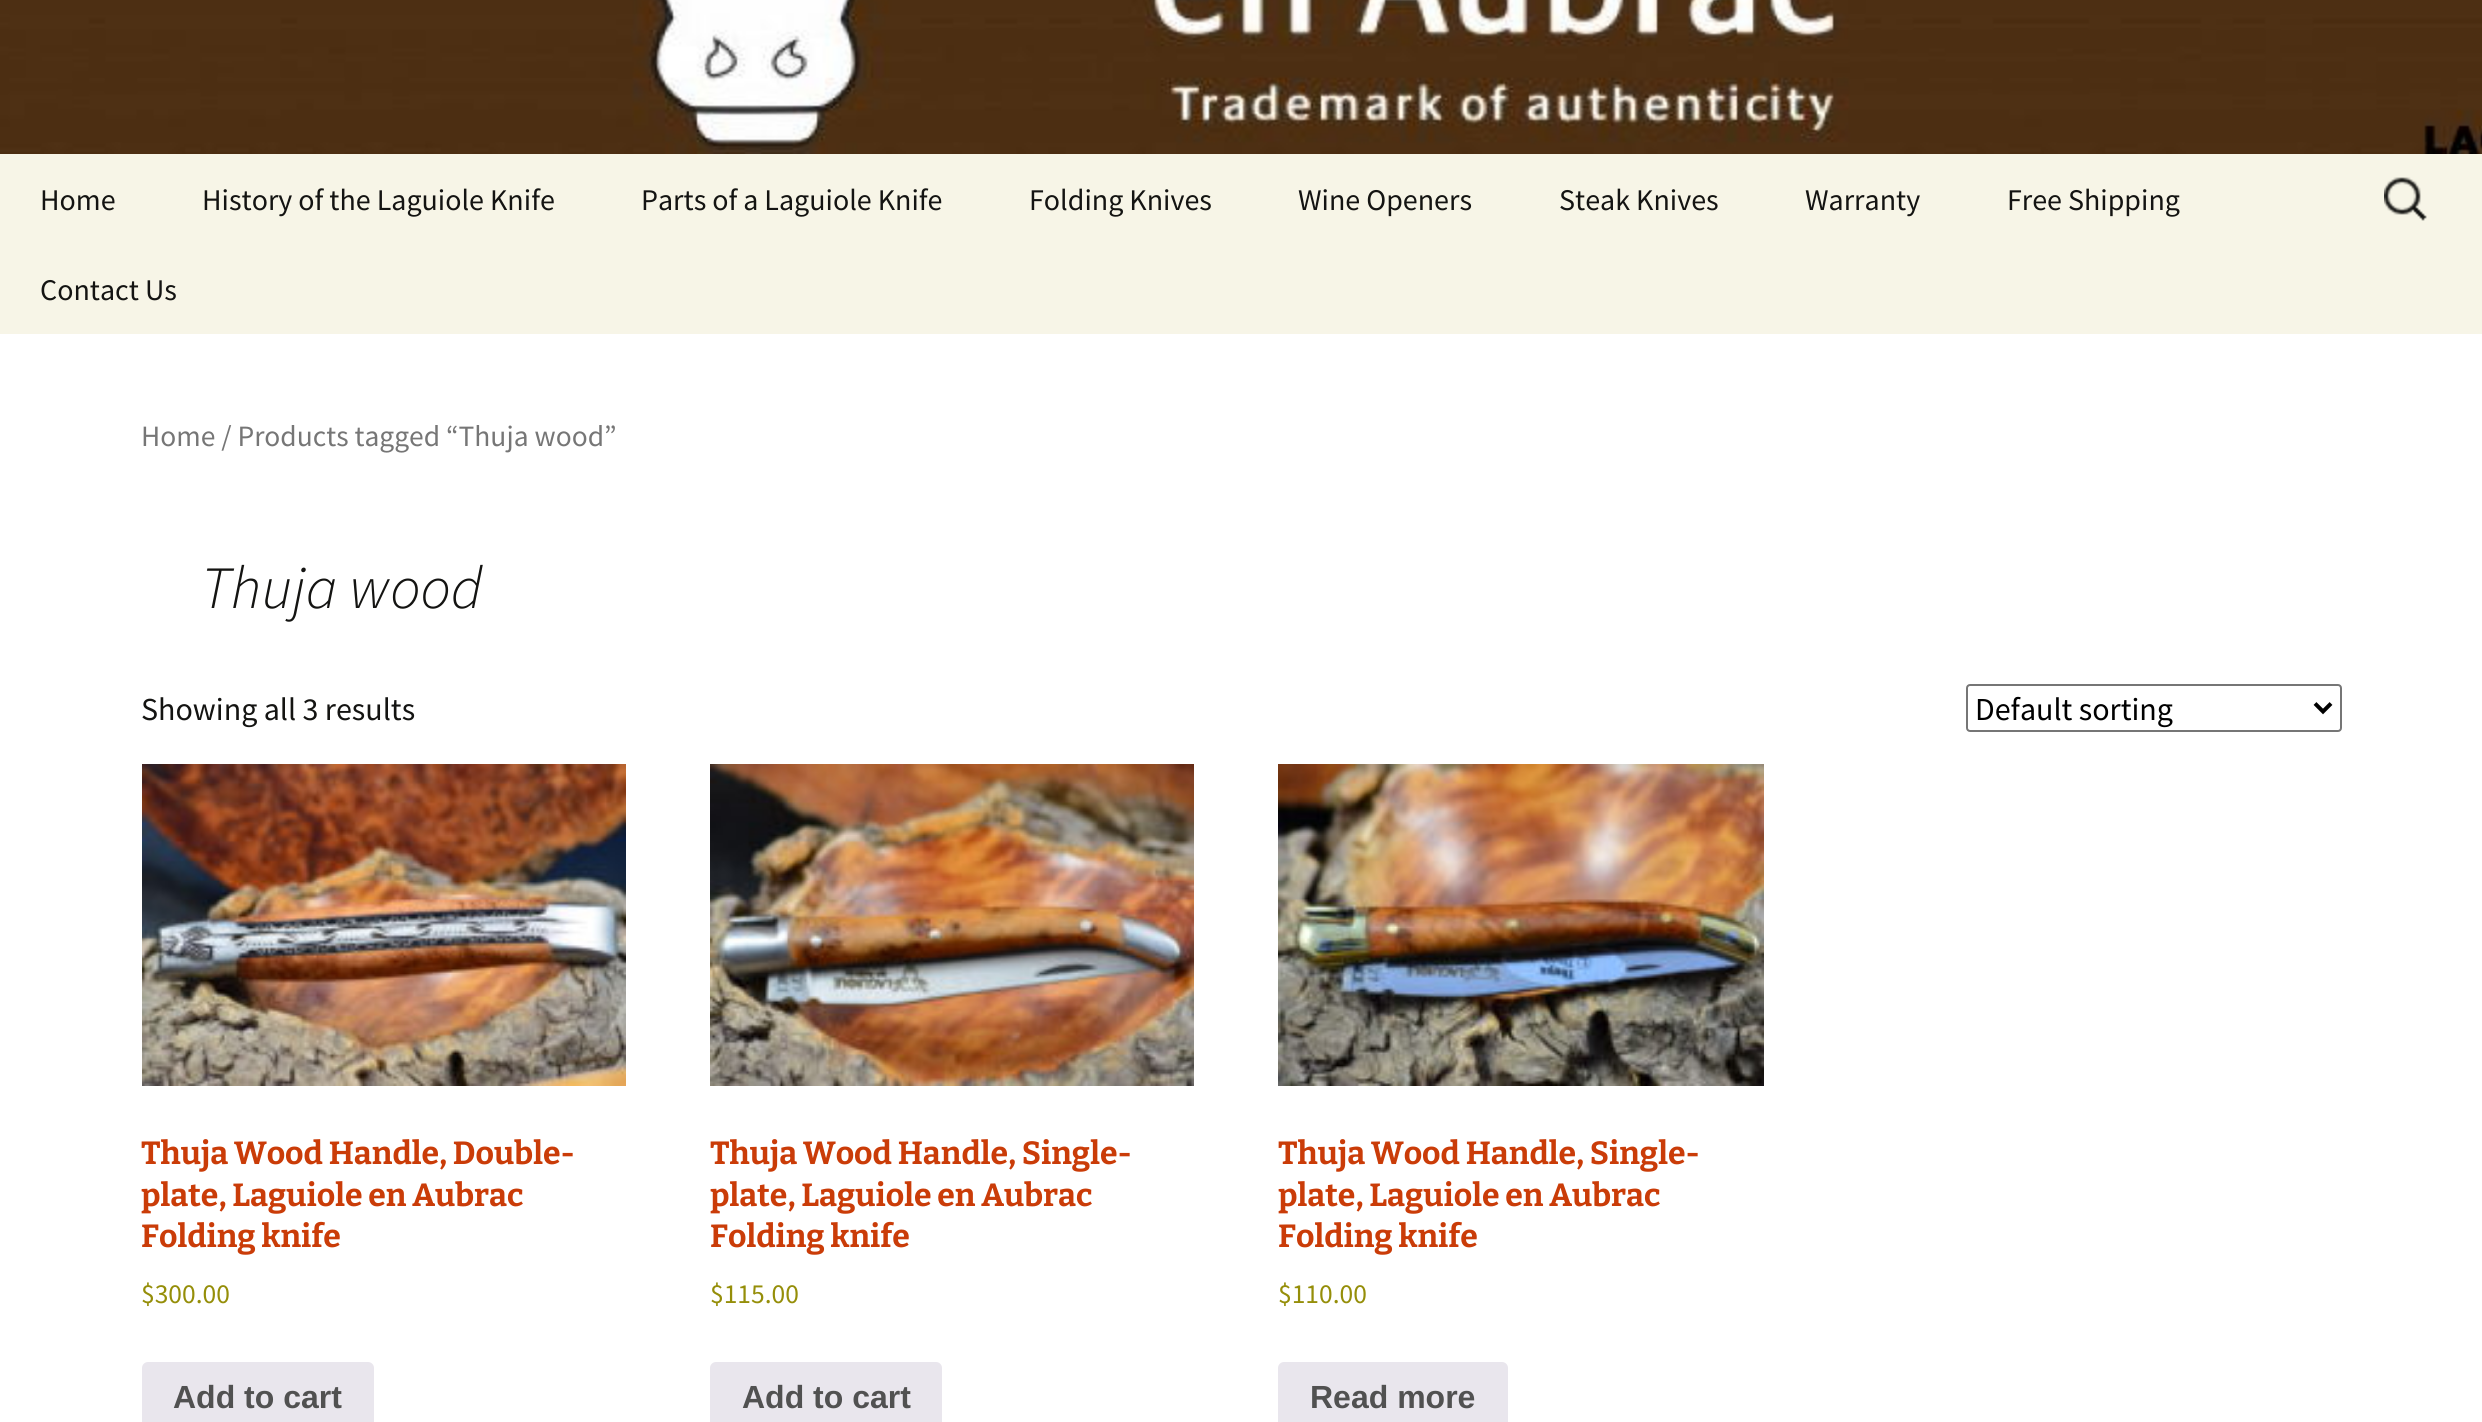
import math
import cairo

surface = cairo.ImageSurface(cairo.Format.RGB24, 2482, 1422)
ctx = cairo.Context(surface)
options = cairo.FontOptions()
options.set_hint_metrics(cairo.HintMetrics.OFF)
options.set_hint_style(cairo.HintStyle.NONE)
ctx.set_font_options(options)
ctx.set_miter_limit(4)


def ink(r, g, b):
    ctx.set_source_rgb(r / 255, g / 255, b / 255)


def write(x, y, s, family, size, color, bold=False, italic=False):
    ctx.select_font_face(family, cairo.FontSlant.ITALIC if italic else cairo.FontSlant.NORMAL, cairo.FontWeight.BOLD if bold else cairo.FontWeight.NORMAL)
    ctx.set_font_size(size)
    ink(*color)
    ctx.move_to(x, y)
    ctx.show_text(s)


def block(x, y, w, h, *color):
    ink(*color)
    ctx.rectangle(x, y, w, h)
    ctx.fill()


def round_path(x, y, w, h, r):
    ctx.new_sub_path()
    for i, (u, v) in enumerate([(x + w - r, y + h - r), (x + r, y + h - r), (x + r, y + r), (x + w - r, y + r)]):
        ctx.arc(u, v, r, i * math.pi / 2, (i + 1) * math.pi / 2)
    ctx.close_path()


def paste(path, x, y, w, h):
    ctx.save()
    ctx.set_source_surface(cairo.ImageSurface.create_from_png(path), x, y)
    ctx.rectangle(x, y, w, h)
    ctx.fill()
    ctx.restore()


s1 = dict(family="Source Sans Pro", size=30, color=(20, 20, 18))
s2 = dict(family="Source Sans Pro", size=29.5, color=(118, 118, 118))
s3 = dict(family="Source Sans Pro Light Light", size=60, color=(20, 20, 18), italic=True)
s4 = dict(family="Source Sans Pro", size=32, color=(20, 20, 18))
s5 = dict(family="Source Sans Pro", size=32, color=(0, 0, 0))
s6 = dict(family="Bitter Thin", size=32, color=(202, 60, 8))
s7 = dict(family="Source Sans Pro", size=27.5, color=(149, 142, 9))
s8 = dict(family="Liberation Sans", size=32, color=(81, 81, 81), bold=True)

ink(255, 255, 255)
ctx.paint()
paste("pic1.png", 0, 0, 2482, 154)
block(0, 154, 2482, 180, 247, 245, 231)
write(40, 210, "Home", **s1)
write(202, 210, "History of the Laguiole Knife", **s1)
write(641, 210, "Parts of a Laguiole Knife", **s1)
write(1029, 210, "Folding Knives", **s1)
write(1298, 210, "Wine Openers", **s1)
write(1559, 210, "Steak Knives", **s1)
write(1805, 210, "Warranty", **s1)
write(2007, 210, "Free Shipping", **s1)
write(40, 300, "Contact Us", **s1)
paste("pic2.png", 2384, 177, 43, 44)
write(141, 446, "Home / Products tagged “Thuja wood”", **s2)
write(201, 608, "Thuja wood", **s3)
write(141, 720, "Showing all 3 results", **s4)
round_path(1967, 685, 374, 46, 3)
ink(118, 118, 118)
ctx.stroke()
ctx.new_path()
ctx.move_to(2315, 703.5)
ctx.line_to(2323, 711.5)
ctx.line_to(2331, 703.5)
ink(0, 0, 0)
ctx.set_line_width(4)
ctx.stroke()
write(1975, 720, "Default sorting", **s5)
paste("pic3.png", 142, 764, 484, 322)
write(141, 1164, "Thuja Wood Handle, Double-", **s6)
write(141, 1206, "plate, Laguiole en Aubrac", **s6)
write(141, 1247, "Folding knife", **s6)
write(141, 1303, "$300.00", **s7)
ink(233, 230, 237)
round_path(142, 1362, 232, 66, 6)
ctx.fill()
write(173, 1408, "Add to cart", **s8)
paste("pic4.png", 710, 764, 484, 322)
write(710, 1164, "Thuja Wood Handle, Single-", **s6)
write(710, 1206, "plate, Laguiole en Aubrac", **s6)
write(710, 1247, "Folding knife", **s6)
write(710, 1303, "$115.00", **s7)
ink(233, 230, 237)
round_path(710, 1362, 232, 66, 6)
ctx.fill()
write(742, 1408, "Add to cart", **s8)
paste("pic5.png", 1278, 764, 486, 322)
write(1278, 1164, "Thuja Wood Handle, Single-", **s6)
write(1278, 1206, "plate, Laguiole en Aubrac", **s6)
write(1278, 1247, "Folding knife", **s6)
write(1278, 1303, "$110.00", **s7)
ink(233, 230, 237)
round_path(1278, 1362, 230, 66, 6)
ctx.fill()
write(1310, 1408, "Read more", **s8)
surface.write_to_png("screenshot.png")
